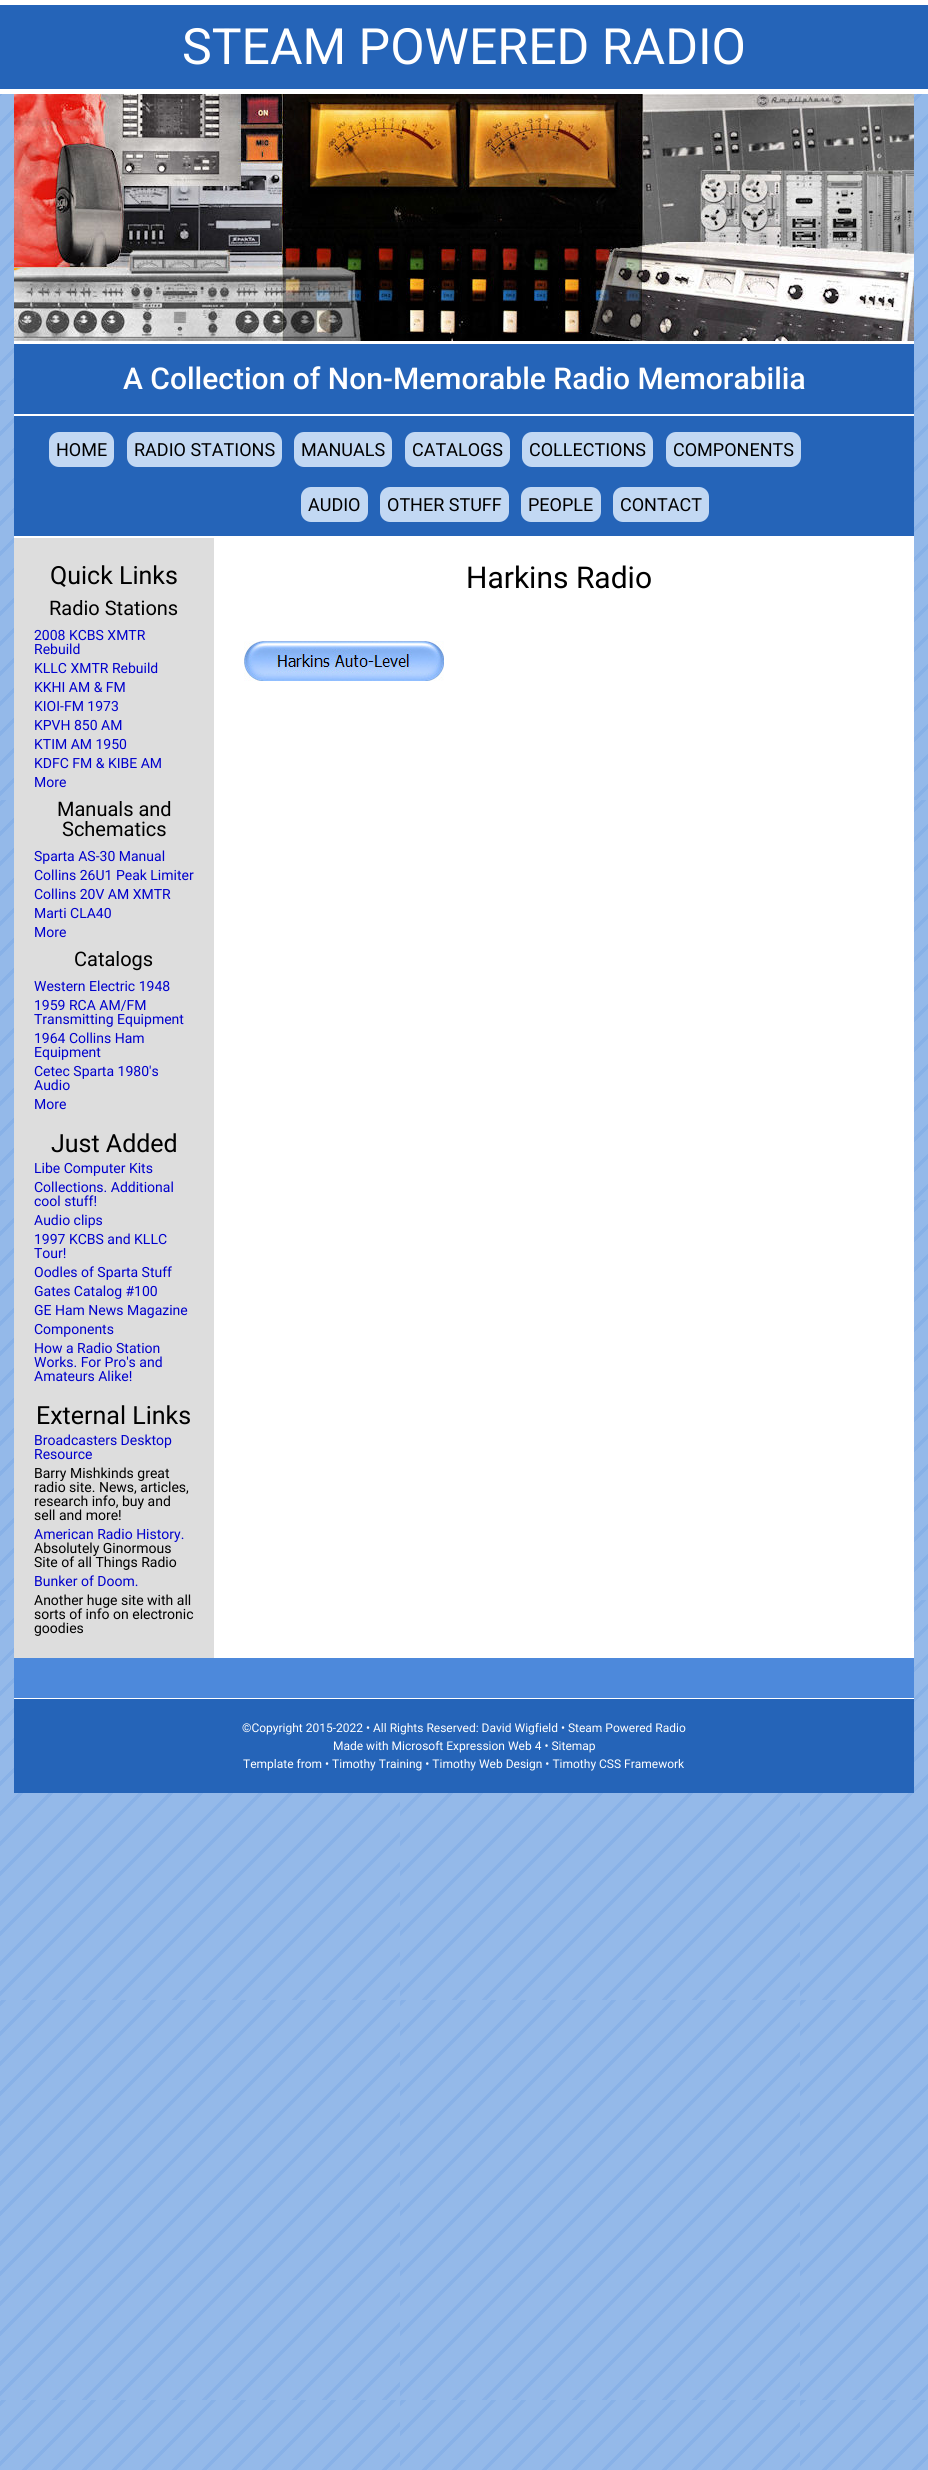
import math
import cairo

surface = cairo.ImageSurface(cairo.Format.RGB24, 928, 2470)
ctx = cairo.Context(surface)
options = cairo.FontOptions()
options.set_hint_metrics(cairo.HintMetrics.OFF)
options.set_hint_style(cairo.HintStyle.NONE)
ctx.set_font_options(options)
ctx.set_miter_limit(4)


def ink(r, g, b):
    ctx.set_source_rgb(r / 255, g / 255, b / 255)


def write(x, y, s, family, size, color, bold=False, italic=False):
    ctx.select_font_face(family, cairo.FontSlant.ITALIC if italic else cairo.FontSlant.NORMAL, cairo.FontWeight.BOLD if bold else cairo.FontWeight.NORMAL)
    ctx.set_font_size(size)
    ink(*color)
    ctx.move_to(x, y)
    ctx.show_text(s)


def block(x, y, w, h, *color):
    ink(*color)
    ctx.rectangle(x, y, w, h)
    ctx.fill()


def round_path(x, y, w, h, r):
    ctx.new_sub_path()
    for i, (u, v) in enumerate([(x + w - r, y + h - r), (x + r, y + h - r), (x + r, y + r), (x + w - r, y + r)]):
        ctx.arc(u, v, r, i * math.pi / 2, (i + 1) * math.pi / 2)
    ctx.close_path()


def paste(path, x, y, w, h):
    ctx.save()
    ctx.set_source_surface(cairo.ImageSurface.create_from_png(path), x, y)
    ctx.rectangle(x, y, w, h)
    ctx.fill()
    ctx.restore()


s1 = dict(family="Roboto", size=50, color=(255, 255, 255))
s2 = dict(family="Roboto Medium", size=30, color=(255, 255, 255))
s3 = dict(family="Roboto", size=18, color=(0, 0, 0))
s4 = dict(family="Roboto", size=25, color=(0, 0, 0))
s5 = dict(family="Roboto", size=20, color=(0, 0, 0))
s6 = dict(family="Roboto", size=14, color=(0, 0, 204))
s7 = dict(family="Roboto", size=14, color=(0, 0, 0))
s8 = dict(family="Roboto", size=30, color=(0, 0, 0))
s9 = dict(family="Roboto", size=12, color=(255, 255, 255))

ink(255, 255, 255)
ctx.paint()
paste("pic1.png", 0, 94, 928, 2376)
block(0, 5, 928, 84, 37, 100, 184)
write(182, 64, "STEAM POWERED RADIO", **s1)
paste("pic2.png", 14, 94, 900, 247)
block(214, 538, 700, 1120, 255, 255, 255)
block(14, 344, 900, 70, 37, 100, 184)
block(14, 341, 900, 3, 255, 255, 255)
block(14, 414, 900, 2, 255, 255, 255)
write(123, 389, "A Collection of Non-Memorable Radio Memorabilia", **s2)
block(14, 416, 900, 120, 37, 100, 184)
ink(194, 216, 243)
round_path(49, 432, 65, 35, 10)
ctx.fill()
write(56, 456, "HOME", **s3)
ink(194, 216, 243)
round_path(127, 432, 155, 35, 10)
ctx.fill()
write(134, 456, "RADIO STATIONS", **s3)
ink(194, 216, 243)
round_path(294, 432, 98, 35, 10)
ctx.fill()
write(301, 456, "MANUALS", **s3)
ink(194, 216, 243)
round_path(405, 432, 105, 35, 10)
ctx.fill()
write(412, 456, "CATALOGS", **s3)
ink(194, 216, 243)
round_path(522, 432, 131, 35, 10)
ctx.fill()
write(529, 456, "COLLECTIONS", **s3)
ink(194, 216, 243)
round_path(666, 432, 135, 35, 10)
ctx.fill()
write(673, 456, "COMPONENTS", **s3)
block(14, 536, 900, 2, 255, 255, 255)
ink(194, 216, 243)
round_path(301, 487, 67, 35, 10)
ctx.fill()
write(308, 511, "AUDIO", **s3)
ink(194, 216, 243)
round_path(380, 487, 129, 35, 10)
ctx.fill()
write(387, 511, "OTHER STUFF", **s3)
ink(194, 216, 243)
round_path(521, 487, 80, 35, 10)
ctx.fill()
write(528, 511, "PEOPLE", **s3)
ink(194, 216, 243)
round_path(613, 487, 96, 35, 10)
ctx.fill()
write(620, 511, "CONTACT", **s3)
block(14, 538, 200, 1120, 221, 221, 221)
write(50, 584, "Quick Links", **s4)
write(49, 615, "Radio Stations", **s5)
write(34, 640, "2008 KCBS XMTR", **s6)
write(34, 654, "Rebuild", **s6)
write(34, 673, "KLLC XMTR Rebuild", **s6)
write(34, 692, "KKHI AM & FM", **s6)
write(34, 711, "KIOI-FM 1973", **s6)
write(34, 730, "KPVH 850 AM", **s6)
write(34, 749, "KTIM AM 1950", **s6)
write(34, 768, "KDFC FM & KIBE AM", **s6)
write(34, 787, "More", **s6)
write(57, 816, "Manuals and", **s5)
write(62, 836, "Schematics", **s5)
write(34, 861, "Sparta AS-30 Manual", **s6)
write(34, 880, "Collins 26U1 Peak Limiter", **s6)
write(34, 899, "Collins 20V AM XMTR", **s6)
write(34, 918, "Marti CLA40", **s6)
write(34, 937, "More", **s6)
write(74, 966, "Catalogs", **s5)
write(34, 991, "Western Electric 1948", **s6)
write(34, 1010, "1959 RCA AM/FM", **s6)
write(34, 1024, "Transmitting Equipment", **s6)
write(34, 1043, "1964 Collins Ham", **s6)
write(34, 1057, "Equipment", **s6)
write(34, 1076, "Cetec Sparta 1980's", **s6)
write(34, 1090, "Audio", **s6)
write(34, 1109, "More", **s6)
write(51, 1152, "Just Added", **s4)
write(34, 1173, "Libe Computer Kits", **s6)
write(34, 1192, "Collections. Additional", **s6)
write(34, 1206, "cool stuff!", **s6)
write(34, 1225, "Audio clips", **s6)
write(34, 1244, "1997 KCBS and KLLC", **s6)
write(34, 1258, "Tour!", **s6)
write(34, 1277, "Oodles of Sparta Stuff", **s6)
write(34, 1296, "Gates Catalog #100", **s6)
write(34, 1315, "GE Ham News Magazine", **s6)
write(34, 1334, "Components", **s6)
write(34, 1353, "How a Radio Station", **s6)
write(34, 1367, "Works. For Pro's and", **s6)
write(34, 1381, "Amateurs Alike!", **s6)
write(36, 1424, "External Links", **s4)
write(34, 1445, "Broadcasters Desktop", **s6)
write(34, 1459, "Resource", **s6)
write(34, 1478, "Barry Mishkinds great", **s7)
write(34, 1492, "radio site. News, articles,", **s7)
write(34, 1506, "research info, buy and", **s7)
write(34, 1520, "sell and more!", **s7)
write(34, 1539, "American Radio History.", **s6)
write(34, 1553, "Absolutely Ginormous", **s7)
write(34, 1567, "Site of all Things Radio", **s7)
write(34, 1586, "Bunker of Doom.", **s6)
write(34, 1605, "Another huge site with all", **s7)
write(34, 1619, "sorts of info on electronic", **s7)
write(34, 1633, "goodies", **s7)
write(466, 588, "Harkins Radio", **s8)
paste("pic3.png", 244, 641, 200, 40)
block(14, 1658, 900, 40, 77, 137, 219)
block(14, 1698, 900, 1, 255, 255, 255)
block(14, 1699, 900, 94, 37, 100, 184)
write(242, 1732, "©Copyright 2015-2022 • All Rights Reserved: David Wigfield • Steam Powered Radio", **s9)
write(333, 1750, "Made with Microsoft Expression Web 4 • Sitemap", **s9)
write(243, 1768, "Template from • Timothy Training • Timothy Web Design • Timothy CSS Framework", **s9)
surface.write_to_png("screenshot.png")
